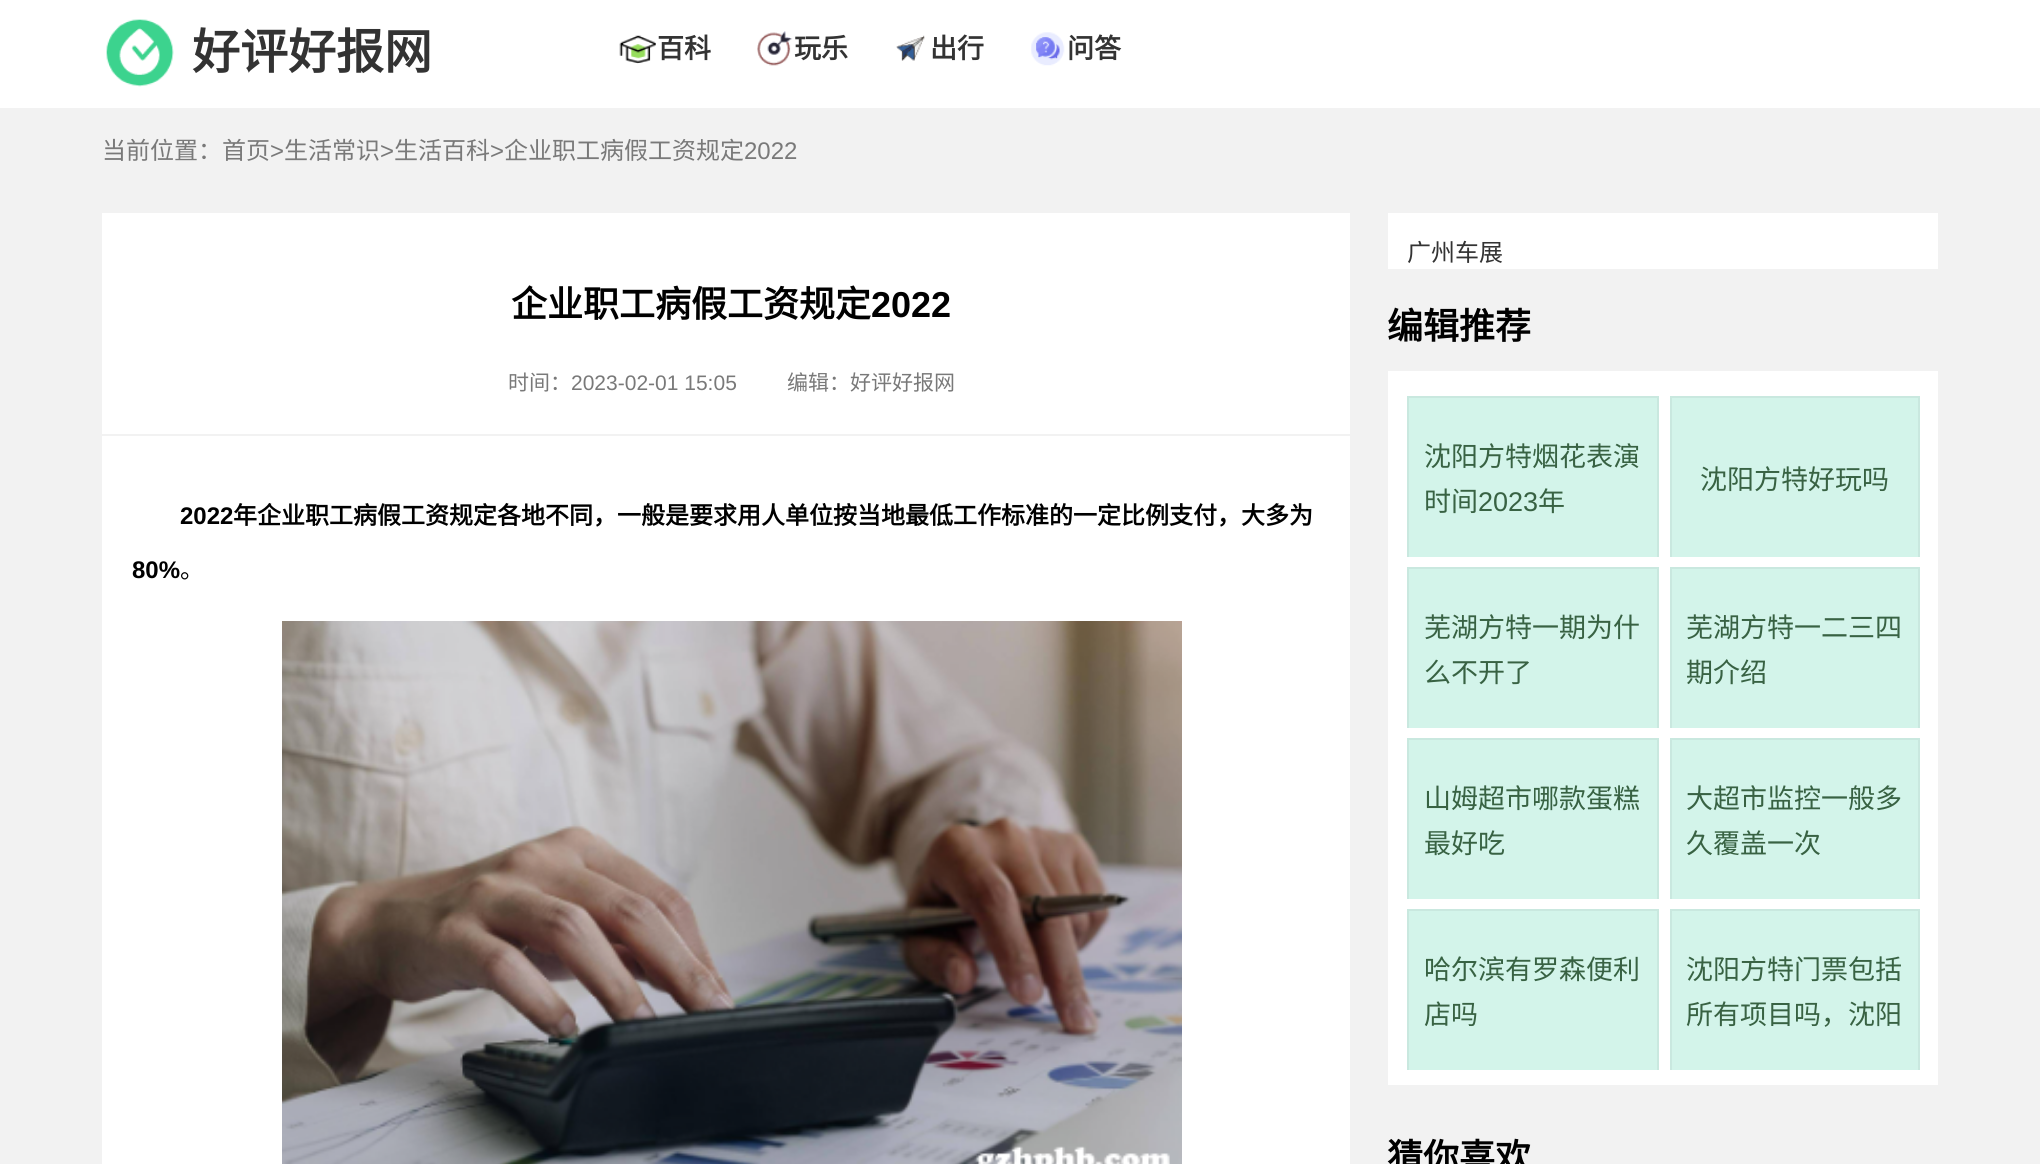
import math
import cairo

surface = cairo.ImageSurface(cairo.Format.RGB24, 2040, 1164)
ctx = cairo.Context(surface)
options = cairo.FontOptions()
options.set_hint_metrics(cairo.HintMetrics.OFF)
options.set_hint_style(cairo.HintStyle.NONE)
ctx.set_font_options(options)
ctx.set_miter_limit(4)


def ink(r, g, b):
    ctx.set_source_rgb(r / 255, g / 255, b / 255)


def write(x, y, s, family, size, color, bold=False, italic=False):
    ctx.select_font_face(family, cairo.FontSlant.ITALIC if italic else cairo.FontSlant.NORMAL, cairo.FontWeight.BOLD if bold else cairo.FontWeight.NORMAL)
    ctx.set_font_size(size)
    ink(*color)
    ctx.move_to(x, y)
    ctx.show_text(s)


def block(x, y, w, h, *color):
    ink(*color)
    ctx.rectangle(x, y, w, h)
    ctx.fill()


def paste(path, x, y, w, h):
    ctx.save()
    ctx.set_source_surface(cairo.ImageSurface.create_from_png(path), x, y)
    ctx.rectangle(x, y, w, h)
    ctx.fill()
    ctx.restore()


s1 = dict(family="Noto Sans CJK SC", size=48, color=(51, 51, 51), bold=True)
s2 = dict(family="Noto Sans CJK SC", size=27, color=(51, 51, 51), bold=True)
s3 = dict(family="Noto Sans CJK SC", size=24, color=(121, 121, 121))
s4 = dict(family="Liberation Sans", size=24, color=(121, 121, 121))
s5 = dict(family="Noto Sans CJK SC", size=36, color=(0, 0, 0), bold=True)
s6 = dict(family="Liberation Sans", size=36, color=(0, 0, 0), bold=True)
s7 = dict(family="Noto Sans CJK SC", size=21, color=(121, 121, 121))
s8 = dict(family="Liberation Sans", size=21, color=(121, 121, 121))
s9 = dict(family="Liberation Sans", size=24, color=(0, 0, 0), bold=True)
s10 = dict(family="Noto Sans CJK SC", size=24, color=(0, 0, 0), bold=True)
s11 = dict(family="Noto Sans CJK SC", size=24, color=(0, 0, 0))
s12 = dict(family="Noto Sans CJK SC", size=24, color=(51, 51, 51))
s13 = dict(family="Noto Sans CJK SC", size=27, color=(56, 98, 67))
s14 = dict(family="Liberation Sans", size=27, color=(56, 98, 67))

ink(242, 242, 242)
ctx.paint()
block(0, 0, 2040, 108, 255, 255, 255)
paste("pic1.png", 106, 19, 68, 68)
write(192, 69, "好评好报网", **s1)
paste("pic2.png", 619, 35, 37, 29)
write(657, 58, "百科", **s2)
paste("pic3.png", 757, 31, 36, 35)
write(794, 58, "玩乐", **s2)
paste("pic4.png", 896, 35, 29, 26)
write(930, 58, "出行", **s2)
paste("pic5.png", 1031, 32, 34, 34)
write(1067, 58, "问答", **s2)
write(102, 159, "当前位置：首页", **s3)
write(270, 159, ">", **s4)
write(284, 159, "生活常识", **s3)
write(380, 159, ">", **s4)
write(394, 159, "生活百科", **s3)
write(490, 159, ">", **s4)
write(504, 159, "企业职工病假工资规定", **s3)
write(744, 159, "2022", **s4)
block(102, 213, 1248, 951, 255, 255, 255)
block(102, 434, 1248, 2, 242, 242, 242)
write(511, 317, "企业职工病假工资规定", **s5)
write(871, 317, "2022", **s6)
write(508, 390, "时间：", **s7)
write(571, 390, "2023-02-01 15:05", **s8)
write(787, 390, "编辑：好评好报网", **s7)
write(180, 524, "2022", **s9)
write(233, 524, "年企业职工病假工资规定各地不同，一般是要求用人单位按当地最低工作标准的一定比例支付，大多为", **s10)
write(132, 578, "80%", **s9)
write(180, 578, "。", **s11)
paste("pic6.png", 282, 621, 900, 543)
block(1388, 213, 550, 56, 255, 255, 255)
write(1407, 261, "广州车展", **s12)
write(1387, 339, "编辑推荐", **s5)
block(1388, 371, 550, 714, 255, 255, 255)
block(1409, 398, 248, 159, 211, 244, 234)
ctx.save()
ctx.rectangle(1403, 386, 261, 171)
ctx.clip()
ctx.rectangle(1408, 397, 250, 166)
ink(201, 232, 223)
ctx.stroke()
ctx.restore()
write(1424, 466, "沈阳方特烟花表演", **s13)
write(1424, 511, "时间", **s13)
write(1478, 511, "2023", **s14)
write(1538, 511, "年", **s13)
block(1672, 398, 246, 159, 211, 244, 234)
ctx.save()
ctx.rectangle(1664, 386, 262, 171)
ctx.clip()
ctx.rectangle(1671, 397, 248, 166)
ink(201, 232, 223)
ctx.stroke()
ctx.restore()
write(1700, 489, "沈阳方特好玩吗", **s13)
block(1409, 569, 248, 159, 211, 244, 234)
ctx.save()
ctx.rectangle(1403, 557, 261, 171)
ctx.clip()
ctx.rectangle(1408, 568, 250, 166)
ink(201, 232, 223)
ctx.stroke()
ctx.restore()
write(1424, 637, "芜湖方特一期为什", **s13)
write(1424, 682, "么不开了", **s13)
block(1672, 569, 246, 159, 211, 244, 234)
ctx.save()
ctx.rectangle(1664, 557, 262, 171)
ctx.clip()
ctx.rectangle(1671, 568, 248, 166)
ink(201, 232, 223)
ctx.stroke()
ctx.restore()
write(1686, 637, "芜湖方特一二三四", **s13)
write(1686, 682, "期介绍", **s13)
block(1409, 740, 248, 159, 211, 244, 234)
ctx.save()
ctx.rectangle(1403, 728, 261, 171)
ctx.clip()
ctx.rectangle(1408, 739, 250, 166)
ink(201, 232, 223)
ctx.stroke()
ctx.restore()
write(1424, 808, "山姆超市哪款蛋糕", **s13)
write(1424, 853, "最好吃", **s13)
block(1672, 740, 246, 159, 211, 244, 234)
ctx.save()
ctx.rectangle(1664, 728, 262, 171)
ctx.clip()
ctx.rectangle(1671, 739, 248, 166)
ink(201, 232, 223)
ctx.stroke()
ctx.restore()
write(1686, 808, "大超市监控一般多", **s13)
write(1686, 853, "久覆盖一次", **s13)
block(1409, 911, 248, 159, 211, 244, 234)
ctx.save()
ctx.rectangle(1403, 899, 261, 171)
ctx.clip()
ctx.rectangle(1408, 910, 250, 166)
ink(201, 232, 223)
ctx.stroke()
ctx.restore()
write(1424, 979, "哈尔滨有罗森便利", **s13)
write(1424, 1024, "店吗", **s13)
block(1672, 911, 246, 159, 211, 244, 234)
ctx.save()
ctx.rectangle(1664, 899, 262, 171)
ctx.clip()
ctx.rectangle(1671, 910, 248, 166)
ink(201, 232, 223)
ctx.stroke()
ctx.restore()
write(1686, 979, "沈阳方特门票包括", **s13)
write(1686, 1024, "所有项目吗，沈阳", **s13)
write(1387, 1170, "猜你喜欢", **s5)
surface.write_to_png("screenshot.png")
